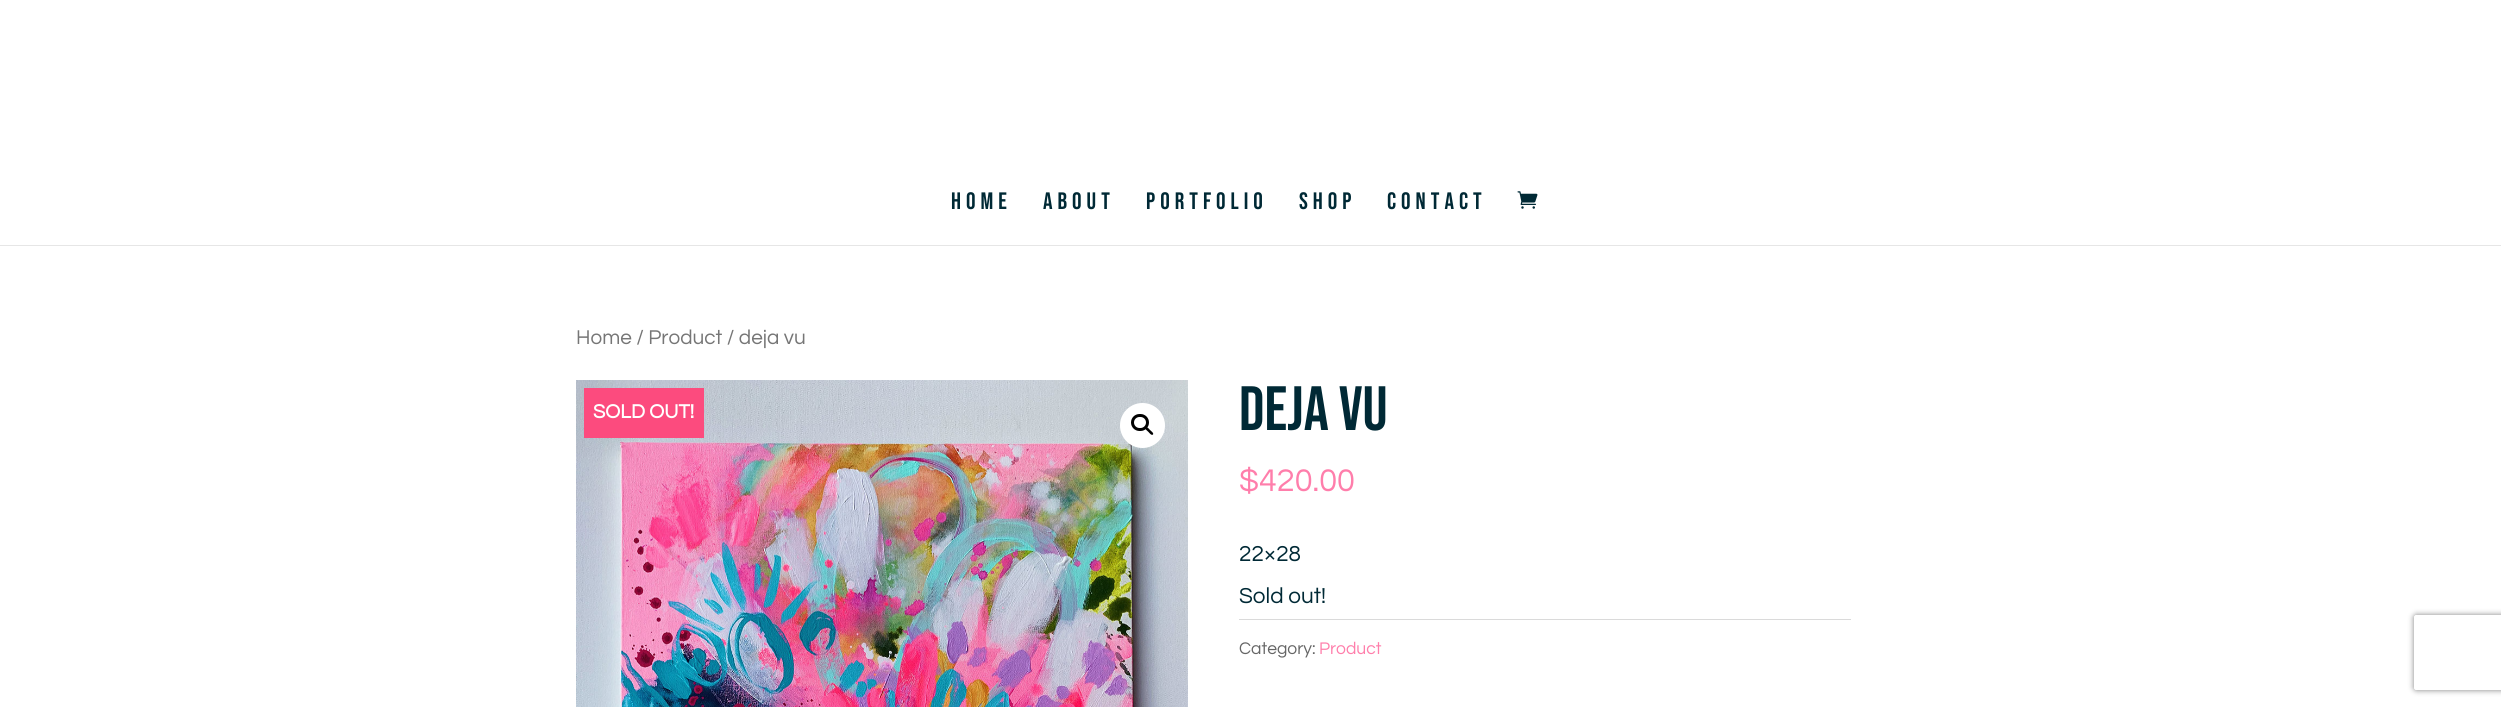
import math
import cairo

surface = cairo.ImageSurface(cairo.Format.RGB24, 2501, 707)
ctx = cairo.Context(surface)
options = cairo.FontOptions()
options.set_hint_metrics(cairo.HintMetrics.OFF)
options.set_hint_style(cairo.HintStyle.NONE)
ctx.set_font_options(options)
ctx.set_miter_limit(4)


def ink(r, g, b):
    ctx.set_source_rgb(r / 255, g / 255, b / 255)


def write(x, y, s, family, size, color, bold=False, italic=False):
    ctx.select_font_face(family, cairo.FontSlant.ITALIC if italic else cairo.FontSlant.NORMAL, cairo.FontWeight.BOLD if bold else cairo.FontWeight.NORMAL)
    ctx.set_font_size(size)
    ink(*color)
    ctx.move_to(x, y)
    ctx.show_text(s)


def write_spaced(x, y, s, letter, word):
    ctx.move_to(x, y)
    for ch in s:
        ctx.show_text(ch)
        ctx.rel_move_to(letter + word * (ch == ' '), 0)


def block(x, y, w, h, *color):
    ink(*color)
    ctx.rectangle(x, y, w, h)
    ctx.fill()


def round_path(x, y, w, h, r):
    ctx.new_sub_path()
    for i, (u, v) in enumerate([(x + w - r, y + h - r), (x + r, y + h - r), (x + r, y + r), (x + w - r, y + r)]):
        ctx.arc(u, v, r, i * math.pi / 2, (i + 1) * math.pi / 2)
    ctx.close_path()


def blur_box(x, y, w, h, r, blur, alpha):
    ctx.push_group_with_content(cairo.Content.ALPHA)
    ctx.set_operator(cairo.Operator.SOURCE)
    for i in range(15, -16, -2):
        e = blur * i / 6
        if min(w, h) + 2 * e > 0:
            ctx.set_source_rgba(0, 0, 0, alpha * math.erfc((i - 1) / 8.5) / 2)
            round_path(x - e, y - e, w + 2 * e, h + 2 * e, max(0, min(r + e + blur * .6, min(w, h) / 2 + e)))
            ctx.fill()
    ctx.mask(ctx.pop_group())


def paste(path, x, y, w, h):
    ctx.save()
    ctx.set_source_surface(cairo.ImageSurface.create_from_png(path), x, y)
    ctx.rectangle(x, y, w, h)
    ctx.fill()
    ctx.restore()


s1 = dict(family="Questrial", size=20.75, color=(118, 118, 118))
s2 = dict(family="Bebas Neue", size=62.5, color=(0, 41, 53))
s3 = dict(family="Questrial", size=32.5, color=(255, 126, 171))
s4 = dict(family="Questrial", size=22.5, color=(0, 41, 53))
s5 = dict(family="Questrial", size=17.5, color=(102, 102, 102))
s6 = dict(family="Questrial", size=17.5, color=(255, 126, 171))
s7 = dict(family="Questrial", size=20, color=(255, 255, 255), bold=True)

ink(255, 255, 255)
ctx.paint()
block(0, 245, 2501, 1, 230, 230, 230)
ctx.select_font_face("Bebas Neue")
ctx.set_font_size(23.75)
ink(0, 41, 53)
write_spaced(951, 209, "Home", 5, 0)
write_spaced(1043, 209, "About", 5, 0)
write_spaced(1146, 209, "Portfolio", 5, 0)
write_spaced(1299, 209, "Shop", 5, 0)
write_spaced(1387, 209, "Contact", 5, 0)
paste("pic1.png", 1517, 191, 21, 18)
write(576, 344, "Home / Product / deja vu", **s1)
paste("pic2.png", 576, 380, 612, 327)
ink(255, 255, 255)
ctx.arc(1142.5, 425.5, 22.5, 0, 2 * math.pi)
ctx.fill()
round_path(1132.5, 415.5, 15, 14, 7)
ink(0, 0, 0)
ctx.set_line_width(3)
ctx.stroke()
ctx.new_path()
ctx.move_to(1145.5, 427.5)
ctx.curve_to(1147, 426, 1149.5, 429.5, 1150, 430)
ctx.curve_to(1151, 431, 1154, 433, 1153, 434.5)
ctx.curve_to(1151.5, 436, 1149, 432.5, 1148.5, 432)
ctx.curve_to(1147.5, 431, 1144.5, 429, 1145.5, 427.5)
ctx.close_path()
ctx.fill()
write(1239, 430, "deja vu", **s2)
write(1239, 491, "$420.00", **s3)
write(1239, 561, "22×28", **s4)
write(1239, 603, "Sold out!", **s4)
block(1239, 619, 612, 1, 218, 218, 218)
write(1239, 654, "Category:", **s5)
write(1319, 654, "Product", **s6)
block(584, 388, 120, 50, 252, 75, 126)
write(593, 418, "SOLD OUT!", **s7)
ctx.save()
ctx.set_fill_rule(cairo.FillRule.EVEN_ODD)
ctx.new_path()
ctx.move_to(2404, 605)
ctx.line_to(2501, 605)
ctx.line_to(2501, 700)
ctx.line_to(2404, 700)
ctx.close_path()
ctx.move_to(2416.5, 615)
ctx.line_to(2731.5, 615)
ctx.curve_to(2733, 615, 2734, 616, 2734, 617.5)
ctx.line_to(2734, 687.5)
ctx.curve_to(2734, 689, 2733, 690, 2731.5, 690)
ctx.line_to(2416.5, 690)
ctx.curve_to(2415, 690, 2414, 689, 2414, 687.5)
ctx.line_to(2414, 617.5)
ctx.curve_to(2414, 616, 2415, 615, 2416.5, 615)
ctx.close_path()
ctx.clip()
ink(128, 128, 128)
blur_box(2414, 615, 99, 75, 2.5, 3, 1)
ctx.restore()
surface.write_to_png("screenshot.png")
